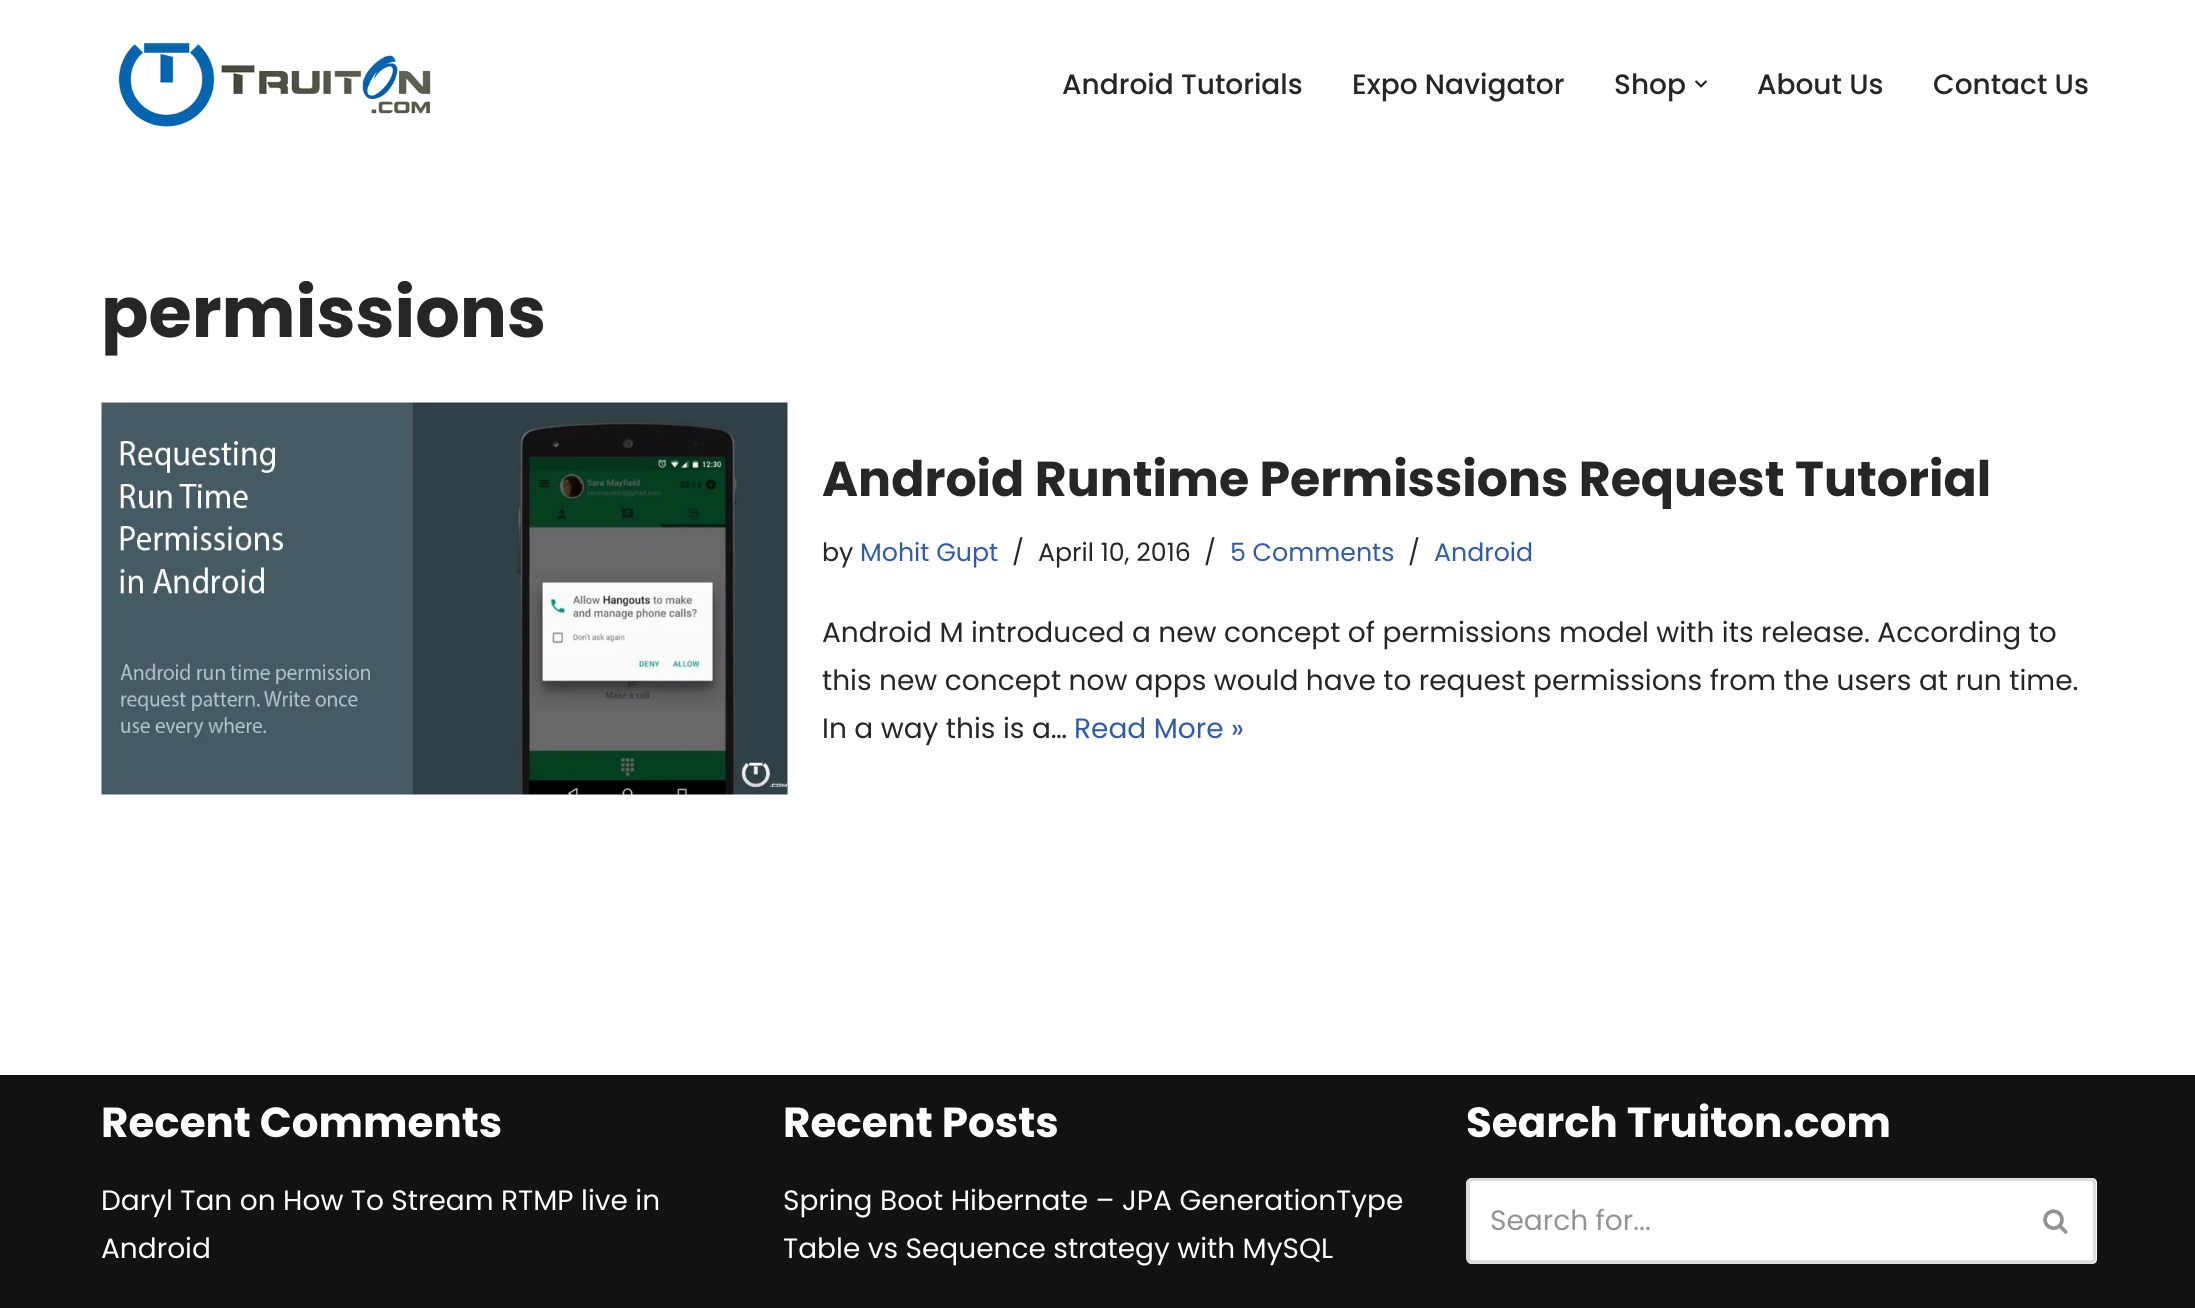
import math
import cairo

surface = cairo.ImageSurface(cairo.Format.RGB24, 2195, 1308)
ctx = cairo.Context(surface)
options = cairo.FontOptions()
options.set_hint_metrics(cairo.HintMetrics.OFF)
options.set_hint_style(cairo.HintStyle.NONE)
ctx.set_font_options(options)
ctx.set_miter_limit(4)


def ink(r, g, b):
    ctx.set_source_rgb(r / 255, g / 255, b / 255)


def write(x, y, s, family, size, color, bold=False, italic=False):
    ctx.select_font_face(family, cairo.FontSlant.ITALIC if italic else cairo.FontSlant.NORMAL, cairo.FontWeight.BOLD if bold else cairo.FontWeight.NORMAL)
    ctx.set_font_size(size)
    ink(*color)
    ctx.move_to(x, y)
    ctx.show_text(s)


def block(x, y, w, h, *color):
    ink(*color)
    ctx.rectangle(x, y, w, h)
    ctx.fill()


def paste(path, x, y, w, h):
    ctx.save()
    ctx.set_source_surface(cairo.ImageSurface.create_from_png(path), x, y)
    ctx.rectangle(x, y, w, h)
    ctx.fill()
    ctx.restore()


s1 = dict(family="Poppins Medium", size=28, color=(39, 38, 38))
s2 = dict(family="Poppins", size=70, color=(39, 38, 38), bold=True)
s3 = dict(family="Poppins", size=49, color=(39, 38, 38), bold=True)
s4 = dict(family="Poppins", size=25.25, color=(39, 38, 38))
s5 = dict(family="Poppins", size=25.25, color=(47, 90, 174))
s6 = dict(family="Poppins", size=28, color=(39, 38, 38))
s7 = dict(family="Poppins", size=28, color=(47, 90, 174))
s8 = dict(family="Poppins", size=42, color=(255, 255, 255), bold=True)
s9 = dict(family="Poppins", size=28, color=(255, 255, 255))
s10 = dict(family="Poppins", size=28, color=(147, 147, 147))

ink(255, 255, 255)
ctx.paint()
paste("pic1.png", 118, 42, 313, 85)
write(1062, 94, "Android Tutorials", **s1)
write(1352, 94, "Expo Navigator", **s1)
write(1614, 94, "Shop", **s1)
paste("pic2.png", 1695, 80, 12, 8)
write(1757, 94, "About Us", **s1)
write(1933, 94, "Contact Us", **s1)
write(101, 337, "permissions", **s2)
paste("pic3.png", 101, 402, 687, 393)
write(822, 496, "Android Runtime Permissions Request Tutorial", **s3)
write(822, 561, "by", **s4)
write(860, 561, "Mohit Gupt", **s5)
write(1012, 561, "/", **s4)
write(1038, 561, "April 10, 2016", **s4)
write(1204, 561, "/", **s4)
write(1230, 561, "5 Comments", **s5)
write(1408, 561, "/", **s4)
write(1434, 561, "Android", **s5)
write(822, 642, "Android M introduced a new concept of permissions model with its release. According to", **s6)
write(822, 690, "this new concept now apps would have to request permissions from the users at run time.", **s6)
write(822, 738, "In a way this is a…", **s6)
write(1074, 738, "Read More »", **s7)
block(0, 1075, 2195, 233, 18, 18, 18)
write(101, 1137, "Recent Comments", **s8)
write(101, 1210, "Daryl Tan on How To Stream RTMP live in", **s9)
write(101, 1258, "Android", **s9)
write(783, 1137, "Recent Posts", **s8)
write(783, 1210, "Spring Boot Hibernate – JPA GenerationType", **s9)
write(783, 1258, "Table vs Sequence strategy with MySQL", **s9)
write(1466, 1137, "Search Truiton.com", **s8)
ctx.new_path()
ctx.move_to(1472, 1178)
ctx.line_to(2018, 1178)
ctx.line_to(2018, 1264)
ctx.line_to(1472, 1264)
ctx.curve_to(1469, 1264, 1467, 1262, 1467, 1259)
ctx.line_to(1467, 1183)
ctx.curve_to(1467, 1180, 1469, 1178, 1472, 1178)
ctx.close_path()
ctx.fill()
ink(221, 221, 221)
ctx.set_fill_rule(cairo.FillRule.EVEN_ODD)
ctx.new_path()
ctx.move_to(1472, 1178)
ctx.line_to(2018, 1178)
ctx.line_to(2018, 1264)
ctx.line_to(1472, 1264)
ctx.curve_to(1469, 1264, 1466, 1261, 1466, 1258)
ctx.line_to(1466, 1183)
ctx.curve_to(1466, 1180, 1469, 1178, 1472, 1178)
ctx.close_path()
ctx.move_to(1472, 1181)
ctx.line_to(2018, 1181)
ctx.line_to(2018, 1260)
ctx.line_to(1472, 1260)
ctx.curve_to(1471, 1260, 1470, 1259, 1470, 1258)
ctx.line_to(1470, 1183)
ctx.curve_to(1470, 1182, 1471, 1181, 1472, 1181)
ctx.close_path()
ctx.fill()
write(1490, 1230, "Search for...", **s10)
ink(255, 255, 255)
ctx.new_path()
ctx.move_to(2018, 1178)
ctx.line_to(2092, 1178)
ctx.curve_to(2095, 1178, 2097, 1180, 2097, 1183)
ctx.line_to(2097, 1259)
ctx.curve_to(2097, 1262, 2095, 1264, 2092, 1264)
ctx.line_to(2018, 1264)
ctx.close_path()
ctx.fill()
ink(221, 221, 221)
ctx.new_path()
ctx.move_to(2018, 1178)
ctx.line_to(2091, 1178)
ctx.curve_to(2094, 1178, 2096, 1180, 2096, 1183)
ctx.line_to(2096, 1258)
ctx.curve_to(2096, 1261, 2094, 1264, 2091, 1264)
ctx.line_to(2018, 1264)
ctx.close_path()
ctx.move_to(2018, 1181)
ctx.line_to(2091, 1181)
ctx.curve_to(2092, 1181, 2093, 1182, 2093, 1183)
ctx.line_to(2093, 1258)
ctx.curve_to(2093, 1259, 2092, 1260, 2091, 1260)
ctx.line_to(2018, 1260)
ctx.close_path()
ctx.fill()
paste("pic4.png", 2043, 1209, 25, 25)
surface.write_to_png("screenshot.png")
